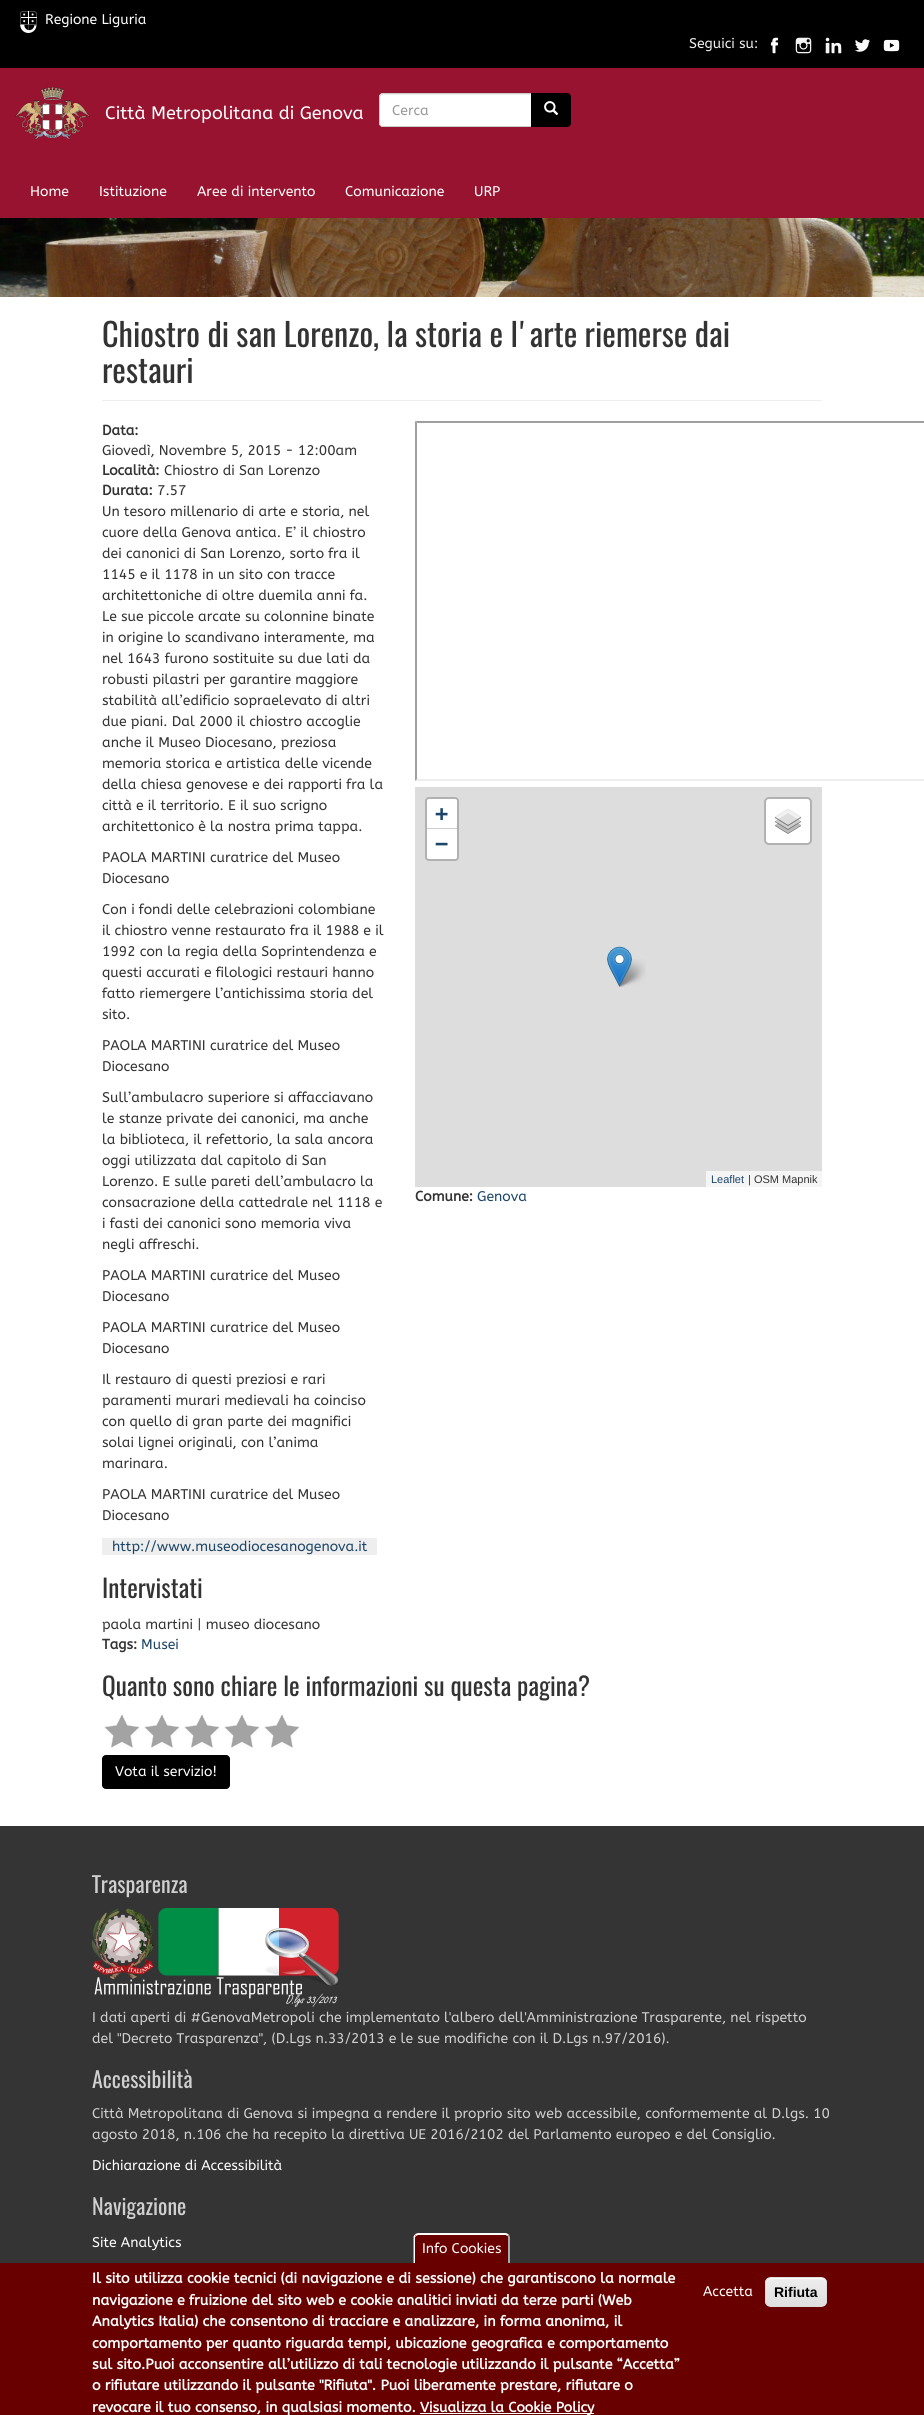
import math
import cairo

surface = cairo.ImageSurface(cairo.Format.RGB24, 924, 2415)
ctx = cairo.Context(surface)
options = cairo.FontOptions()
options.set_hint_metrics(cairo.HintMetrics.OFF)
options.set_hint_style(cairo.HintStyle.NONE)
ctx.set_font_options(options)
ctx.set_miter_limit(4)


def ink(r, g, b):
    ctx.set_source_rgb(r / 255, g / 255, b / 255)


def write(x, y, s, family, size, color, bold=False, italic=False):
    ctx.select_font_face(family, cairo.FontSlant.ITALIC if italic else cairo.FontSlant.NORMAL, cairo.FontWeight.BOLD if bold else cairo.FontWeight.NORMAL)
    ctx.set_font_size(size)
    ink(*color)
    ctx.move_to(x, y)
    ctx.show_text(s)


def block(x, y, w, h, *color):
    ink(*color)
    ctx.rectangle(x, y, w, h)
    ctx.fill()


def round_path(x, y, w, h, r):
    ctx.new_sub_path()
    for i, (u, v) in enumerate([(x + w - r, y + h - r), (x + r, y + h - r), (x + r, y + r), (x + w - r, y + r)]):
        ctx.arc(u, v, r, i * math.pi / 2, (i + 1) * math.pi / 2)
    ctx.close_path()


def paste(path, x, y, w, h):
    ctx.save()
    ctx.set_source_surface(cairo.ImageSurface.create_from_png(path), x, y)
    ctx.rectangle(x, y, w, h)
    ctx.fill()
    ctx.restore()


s1 = dict(family="abeezee", size=14, color=(255, 255, 255))
s2 = dict(family="abeezee", size=14, color=(238, 238, 238))
s3 = dict(family="abeezee", size=18, color=(255, 255, 255))
s4 = dict(family="abeezee", size=14, color=(153, 153, 153))
s5 = dict(family="Oswald", size=32.25, color=(51, 51, 51))
s6 = dict(family="abeezee", size=14, color=(51, 51, 51), bold=True)
s7 = dict(family="abeezee", size=14, color=(51, 51, 51))
s8 = dict(family="abeezee", size=14, color=(28, 69, 103))
s9 = dict(family="Oswald", size=25.25, color=(51, 51, 51))
s10 = dict(family="DejaVu Sans Mono", size=22, color=(28, 69, 103), bold=True)
s11 = dict(family="Liberation Sans", size=11, color=(28, 69, 103))
s12 = dict(family="Liberation Sans", size=11, color=(51, 51, 51))
s13 = dict(family="Oswald", size=22, color=(207, 207, 207))
s14 = dict(family="abeezee", size=14, color=(207, 207, 207))
s15 = dict(family="abeezee", size=14.3, color=(255, 255, 255), bold=True)
s16 = dict(family="abeezee", size=14, color=(255, 255, 255), bold=True)
s17 = dict(family="Liberation Sans", size=14, color=(0, 0, 0), bold=True)

ink(255, 255, 255)
ctx.paint()
block(0, 68, 924, 150, 151, 19, 47)
block(0, 0, 924, 68, 0, 0, 0)
paste("pic1.png", 20, 11, 17, 22)
write(45, 24, "Regione Liguria", **s1)
write(689, 48, "Seguici su:", **s2)
paste("pic2.png", 770, 37, 9, 17)
paste("pic3.png", 795, 37, 17, 17)
paste("pic4.png", 825, 37, 17, 17)
paste("pic5.png", 855, 39, 15, 13)
paste("pic6.png", 883, 39, 17, 13)
paste("pic7.png", 15, 87, 75, 52)
write(105, 119, "Città Metropolitana di Genova", **s3)
ctx.new_path()
ctx.move_to(383, 93)
ctx.line_to(532, 93)
ctx.line_to(532, 127)
ctx.line_to(383, 127)
ctx.curve_to(381, 127, 379, 125, 379, 123)
ctx.line_to(379, 97)
ctx.curve_to(379, 95, 381, 93, 383, 93)
ctx.close_path()
ctx.fill()
ink(236, 236, 236)
ctx.new_path()
ctx.move_to(383, 95)
ctx.line_to(531, 95)
ctx.line_to(531, 94)
ctx.line_to(382, 94)
ctx.curve_to(380, 94, 380, 96, 380, 98)
ctx.curve_to(380, 96, 381, 95, 383, 95)
ctx.close_path()
ctx.fill()
ctx.new_path()
ctx.move_to(383, 93.5)
ctx.line_to(531.5, 93.5)
ctx.line_to(531.5, 126.5)
ctx.line_to(383, 126.5)
ctx.curve_to(381, 126.5, 379.5, 125, 379.5, 123)
ctx.line_to(379.5, 97)
ctx.curve_to(379.5, 95, 381, 93.5, 383, 93.5)
ctx.close_path()
ink(204, 204, 204)
ctx.set_line_width(1)
ctx.stroke()
write(392, 115, "Cerca", **s4)
ink(0, 0, 0)
ctx.new_path()
ctx.move_to(531.5, 93.5)
ctx.line_to(567, 93.5)
ctx.curve_to(569, 93.5, 570.5, 95, 570.5, 97)
ctx.line_to(570.5, 123)
ctx.curve_to(570.5, 125, 569, 126.5, 567, 126.5)
ctx.line_to(531.5, 126.5)
ctx.close_path()
ctx.fill_preserve()
ctx.stroke()
paste("pic8.png", 544, 101, 15, 14)
write(30, 196, "Home", **s1)
write(99, 196, "Istituzione", **s1)
write(197, 196, "Aree di intervento", **s1)
write(345, 196, "Comunicazione", **s1)
write(474, 196, "URP", **s1)
paste("pic9.png", 0, 218, 924, 79)
block(102, 400, 720, 1, 238, 238, 238)
write(102, 347, "Chiostro di san Lorenzo, la storia e l'arte riemerse dai", **s5)
write(102, 383, "restauri", **s5)
write(102, 435, "Data:", **s6)
write(102, 455, "Giovedì, Novembre 5, 2015 - 12:00am", **s7)
write(102, 475, "Località:", **s6)
write(164, 475, "Chiostro di San Lorenzo", **s7)
write(102, 495, "Durata:", **s6)
write(157, 495, "7.57", **s7)
write(102, 516, "Un tesoro millenario di arte e storia, nel", **s7)
write(102, 537, "cuore della Genova antica. E’ il chiostro", **s7)
write(102, 558, "dei canonici di San Lorenzo, sorto fra il", **s7)
write(102, 579, "1145 e il 1178 in un sito con tracce", **s7)
write(102, 600, "architettoniche di oltre duemila anni fa.", **s7)
write(102, 621, "Le sue piccole arcate su colonnine binate", **s7)
write(102, 642, "in origine lo scandivano interamente, ma", **s7)
write(102, 663, "nel 1643 furono sostituite su due lati da", **s7)
write(102, 684, "robusti pilastri per garantire maggiore", **s7)
write(102, 705, "stabilità all’edificio sopraelevato di altri", **s7)
write(102, 726, "due piani. Dal 2000 il chiostro accoglie", **s7)
write(102, 747, "anche il Museo Diocesano, preziosa", **s7)
write(102, 768, "memoria storica e artistica delle vicende", **s7)
write(102, 789, "della chiesa genovese e dei rapporti fra la", **s7)
write(102, 810, "città e il territorio. E il suo scrigno", **s7)
write(102, 831, "architettonico è la nostra prima tappa.", **s7)
write(102, 862, "PAOLA MARTINI curatrice del Museo", **s7)
write(102, 883, "Diocesano", **s7)
write(102, 914, "Con i fondi delle celebrazioni colombiane", **s7)
write(102, 935, "il chiostro venne restaurato fra il 1988 e il", **s7)
write(102, 956, "1992 con la regia della Soprintendenza e", **s7)
write(102, 977, "questi accurati e filologici restauri hanno", **s7)
write(102, 998, "fatto riemergere l’antichissima storia del", **s7)
write(102, 1019, "sito.", **s7)
write(102, 1050, "PAOLA MARTINI curatrice del Museo", **s7)
write(102, 1071, "Diocesano", **s7)
write(102, 1102, "Sull’ambulacro superiore si affacciavano", **s7)
write(102, 1123, "le stanze private dei canonici, ma anche", **s7)
write(102, 1144, "la biblioteca, il refettorio, la sala ancora", **s7)
write(102, 1165, "oggi utilizzata dal capitolo di San", **s7)
write(102, 1186, "Lorenzo. E sulle pareti dell’ambulacro la", **s7)
write(102, 1207, "consacrazione della cattedrale nel 1118 e", **s7)
write(102, 1228, "i fasti dei canonici sono memoria viva", **s7)
write(102, 1249, "negli affreschi.", **s7)
write(102, 1280, "PAOLA MARTINI curatrice del Museo", **s7)
write(102, 1301, "Diocesano", **s7)
write(102, 1332, "PAOLA MARTINI curatrice del Museo", **s7)
write(102, 1353, "Diocesano", **s7)
write(102, 1384, "Il restauro di questi preziosi e rari", **s7)
write(102, 1405, "paramenti murari medievali ha coinciso", **s7)
write(102, 1426, "con quello di gran parte dei magnifici", **s7)
write(102, 1447, "solai lignei originali, con l’anima", **s7)
write(102, 1468, "marinara.", **s7)
write(102, 1499, "PAOLA MARTINI curatrice del Museo", **s7)
write(102, 1520, "Diocesano", **s7)
block(102, 1538, 275, 17, 238, 238, 238)
write(112, 1551, "http://www.museodiocesanogenova.it", **s8)
write(102, 1598, "Intervistati", **s9)
write(102, 1629, "paola martini | museo diocesano", **s7)
write(102, 1649, "Tags:", **s6)
write(141, 1649, "Musei", **s8)
ink(159, 159, 159)
ctx.new_path()
ctx.move_to(415, 421)
ctx.line_to(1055, 421)
ctx.line_to(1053, 423)
ctx.line_to(417, 423)
ctx.close_path()
ctx.fill()
ink(238, 238, 238)
ctx.new_path()
ctx.move_to(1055, 781)
ctx.line_to(415, 781)
ctx.line_to(417, 779)
ctx.line_to(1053, 779)
ctx.close_path()
ctx.fill()
ink(159, 159, 159)
ctx.new_path()
ctx.move_to(415, 781)
ctx.line_to(415, 421)
ctx.line_to(417, 423)
ctx.line_to(417, 779)
ctx.close_path()
ctx.fill()
block(415, 787, 407, 400, 221, 221, 221)
round_path(426, 798, 32, 62, 3)
ink(177, 177, 177)
ctx.set_line_width(2)
ctx.stroke()
ink(255, 255, 255)
ctx.new_path()
ctx.move_to(429, 799)
ctx.line_to(455, 799)
ctx.curve_to(456, 799, 457, 800, 457, 801)
ctx.line_to(457, 829)
ctx.line_to(427, 829)
ctx.line_to(427, 801)
ctx.curve_to(427, 800, 428, 799, 429, 799)
ctx.close_path()
ctx.fill()
block(427, 828, 30, 1, 204, 204, 204)
write(435, 821, "+", **s10)
ink(255, 255, 255)
ctx.new_path()
ctx.move_to(427, 829)
ctx.line_to(457, 829)
ctx.line_to(457, 857)
ctx.curve_to(457, 858, 456, 859, 455, 859)
ctx.line_to(429, 859)
ctx.curve_to(428, 859, 427, 858, 427, 857)
ctx.close_path()
ctx.fill()
write(435, 851, "−", **s10)
ink(255, 255, 255)
round_path(765, 798, 46, 46, 4)
ctx.fill_preserve()
ink(177, 177, 177)
ctx.stroke()
paste("pic10.png", 775, 809, 26, 25)
block(706, 1171, 116, 16, 245, 245, 245)
write(711, 1183, "Leaflet", **s11)
write(748, 1183, "| OSM Mapnik", **s12)
paste("pic12.png", 617, 959, 29, 28)
paste("pic11.png", 607, 946, 25, 41)
write(415, 1201, "Comune:", **s6)
write(477, 1201, "Genova", **s8)
write(102, 1696, "Quanto sono chiare le informazioni su questa pagina?", **s9)
paste("pic13.png", 104, 1714, 195, 34)
ink(0, 0, 0)
round_path(102.5, 1755.5, 127, 33, 3.5)
ctx.fill_preserve()
ctx.set_line_width(1)
ctx.stroke()
write(115, 1776, "Vota il servizio!", **s1)
block(0, 1826, 924, 437, 52, 52, 52)
write(92, 1893, "Trasparenza", **s13)
paste("pic14.png", 92, 1908, 247, 99)
write(92, 2022, "I dati aperti di #GenovaMetropoli che implementato l'albero dell'Amministrazione Trasparente, nel rispetto", **s14)
write(92, 2043, "del \"Decreto Trasparenza\", (D.Lgs n.33/2013 e le sue modifiche con il D.Lgs n.97/2016).", **s14)
write(92, 2088, "Accessibilità", **s13)
write(92, 2118, "Città Metropolitana di Genova si impegna a rendere il proprio sito web accessibile, conformemente al D.lgs. 10", **s14)
write(92, 2139, "agosto 2018, n.106 che ha recepito la direttiva UE 2016/2102 del Parlamento europeo e del Consiglio.", **s14)
write(92, 2170, "Dichiarazione di Accessibilità", **s1)
write(92, 2215, "Navigazione", **s13)
write(92, 2247, "Site Analytics", **s1)
block(0, 2263, 924, 152, 105, 0, 0)
ctx.new_path()
ctx.move_to(418, 2233)
ctx.line_to(505, 2233)
ctx.curve_to(508, 2233, 510, 2235, 510, 2238)
ctx.line_to(510, 2263)
ctx.line_to(413, 2263)
ctx.line_to(413, 2238)
ctx.curve_to(413, 2235, 415, 2233, 418, 2233)
ctx.close_path()
ctx.fill()
ink(255, 255, 255)
ctx.new_path()
ctx.move_to(418, 2233)
ctx.line_to(415, 2234)
ctx.line_to(416, 2236)
ctx.line_to(418, 2235)
ctx.line_to(506, 2235)
ctx.line_to(507, 2236)
ctx.line_to(509, 2235)
ctx.curve_to(508, 2234, 507, 2233, 505, 2233)
ctx.close_path()
ctx.fill()
ink(170, 170, 170)
ctx.new_path()
ctx.move_to(508, 2263)
ctx.line_to(510, 2263)
ctx.line_to(510, 2238)
ctx.curve_to(510, 2236.5, 509.5, 2235.5, 509, 2234.5)
ctx.line_to(507.5, 2236)
ctx.curve_to(508, 2236.5, 508, 2237, 508, 2238)
ctx.close_path()
ctx.fill()
ink(255, 255, 255)
ctx.new_path()
ctx.move_to(413.5, 2263)
ctx.line_to(413.5, 2236.5)
ctx.line_to(414.5, 2234.5)
ctx.line_to(416, 2236)
ctx.curve_to(415.5, 2236.5, 415, 2237, 415, 2238)
ctx.line_to(415, 2263)
ctx.close_path()
ctx.fill()
write(422, 2253, "Info Cookies", **s1)
write(92, 2283, "Il sito utilizza cookie tecnici (di navigazione e di sessione) che garantiscono la normale", **s15)
write(92, 2305, "navigazione e fruizione del sito web e cookie analitici inviati da terze parti (Web", **s15)
write(92, 2326, "Analytics Italia) che consentono di tracciare e analizzare, in forma anonima, il", **s15)
write(92, 2348, "comportamento per quanto riguarda tempi, ubicazione geografica e comportamento", **s15)
write(92, 2369, "sul sito.Puoi acconsentire all’utilizzo di tali tecnologie utilizzando il pulsante “Accetta”", **s15)
write(92, 2390, "o rifiutare utilizzando il pulsante \"Rifiuta\". Puoi liberamente prestare, rifiutare o", **s15)
write(92, 2412, "revocare il tuo consenso, in qualsiasi momento.", **s15)
block(420, 2413, 174, 1, 255, 255, 255)
write(420, 2412, "Visualizza la Cookie Policy", **s16)
write(703, 2296, "Accetta", **s1)
ctx.save()
round_path(765, 2277, 62, 30, 6)
ctx.clip()
gradient = cairo.LinearGradient(796, 2278, 796, 2306)
gradient.add_color_stop_rgba(0.05, 0.929, 0.929, 0.929, 1)
gradient.add_color_stop_rgba(1, 0.875, 0.875, 0.875, 1)
ctx.set_source(gradient)
ctx.rectangle(765, 2278, 62, 28)
ctx.fill()
ctx.restore()
ctx.new_path()
ctx.move_to(771, 2279)
ctx.line_to(821, 2279)
ctx.curve_to(824, 2279, 826, 2281, 826, 2284)
ctx.curve_to(826, 2276, 819, 2278, 813, 2278)
ctx.line_to(779, 2278)
ctx.curve_to(773, 2278, 766, 2276, 766, 2284)
ctx.curve_to(766, 2281, 768, 2279, 771, 2279)
ctx.close_path()
ctx.fill()
round_path(765.5, 2277.5, 61, 29, 5.5)
ink(220, 220, 220)
ctx.stroke()
write(774, 2297, "Rifiuta", **s17)
surface.write_to_png("screenshot.png")
